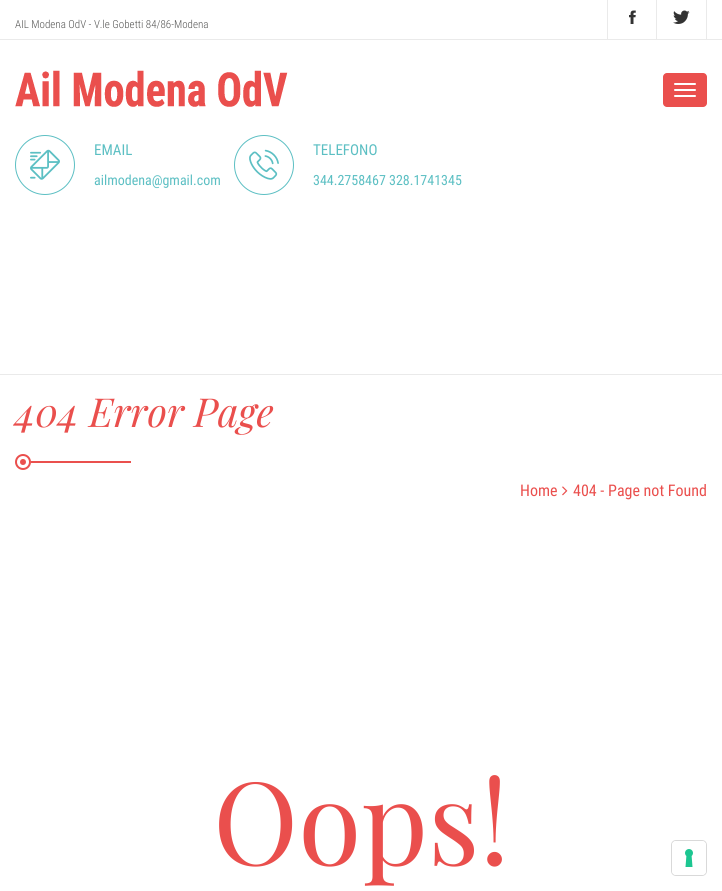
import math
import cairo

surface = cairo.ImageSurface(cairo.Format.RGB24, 722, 891)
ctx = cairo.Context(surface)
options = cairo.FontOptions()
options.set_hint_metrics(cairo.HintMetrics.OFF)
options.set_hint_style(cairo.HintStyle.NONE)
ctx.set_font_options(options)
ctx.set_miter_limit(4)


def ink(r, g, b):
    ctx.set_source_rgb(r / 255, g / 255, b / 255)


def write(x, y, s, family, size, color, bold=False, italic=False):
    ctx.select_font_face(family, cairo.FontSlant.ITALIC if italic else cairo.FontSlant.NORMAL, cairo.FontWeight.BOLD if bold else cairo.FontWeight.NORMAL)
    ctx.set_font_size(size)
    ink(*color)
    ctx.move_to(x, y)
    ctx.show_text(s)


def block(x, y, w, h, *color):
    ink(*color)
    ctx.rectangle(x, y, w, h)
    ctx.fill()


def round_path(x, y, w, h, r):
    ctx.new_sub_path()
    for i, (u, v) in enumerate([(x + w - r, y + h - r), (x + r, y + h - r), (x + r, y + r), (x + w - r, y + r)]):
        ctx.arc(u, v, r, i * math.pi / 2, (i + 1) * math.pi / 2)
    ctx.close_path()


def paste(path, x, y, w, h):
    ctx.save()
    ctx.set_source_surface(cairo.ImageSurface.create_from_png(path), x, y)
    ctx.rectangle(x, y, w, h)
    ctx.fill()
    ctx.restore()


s1 = dict(family="Roboto Condensed Light", size=11, color=(87, 87, 86))
s2 = dict(family="Roboto Condensed", size=15, color=(92, 191, 195))
s3 = dict(family="Roboto Condensed", size=14, color=(92, 191, 195))
s4 = dict(family="Playfair Display", size=40, color=(234, 79, 77), italic=True)
s5 = dict(family="Roboto Condensed", size=16, color=(234, 79, 77))
s6 = dict(family="Playfair Display", size=115, color=(234, 79, 77))

ink(255, 255, 255)
ctx.paint()
block(0, 39, 722, 1, 234, 234, 234)
write(15, 28, "AIL Modena OdV - V.le Gobetti 84/86-Modena", **s1)
block(656, 0, 1, 40, 234, 234, 234)
block(607, 0, 1, 40, 234, 234, 234)
paste("pic1.png", 629, 10, 7, 14)
block(706, 0, 1, 40, 234, 234, 234)
paste("pic2.png", 673, 10, 17, 14)
paste("pic3.png", 15, 70, 273, 37)
ink(234, 79, 77)
round_path(663, 73, 44, 34, 4)
ctx.fill()
ink(255, 255, 255)
round_path(674, 83, 22, 2, 1)
ctx.fill()
round_path(674, 89, 22, 2, 1)
ctx.fill()
round_path(674, 95, 22, 2, 1)
ctx.fill()
ctx.arc(45, 165, 29.5, 0, 2 * math.pi)
ink(92, 191, 195)
ctx.set_line_width(1)
ctx.stroke()
paste("pic4.png", 30, 149, 30, 31)
write(94, 155, "EMAIL", **s2)
write(94, 185, "ailmodena@gmail.com", **s3)
ctx.new_path()
ctx.arc(264, 165, 29.5, 0, 2 * math.pi)
ctx.stroke()
paste("pic5.png", 249, 149, 30, 31)
write(313, 155, "TELEFONO", **s2)
write(313, 185, "344.2758467 328.1741345", **s3)
block(0, 374, 722, 1, 234, 234, 234)
write(15, 427, "404 Error Page", **s4)
ctx.new_path()
ctx.arc(23, 462, 7, 0, 2 * math.pi)
ctx.set_line_width(2)
ctx.stroke()
ink(234, 80, 78)
ctx.arc(23, 462, 3, 0, 2 * math.pi)
ctx.fill()
block(31, 461, 100, 2, 234, 80, 78)
write(520, 496, "Home", **s5)
paste("pic6.png", 562, 486, 6, 10)
write(573, 496, "404 - Page not Found", **s5)
write(213, 865, "Oops!", **s6)
round_path(671.5, 840.5, 35, 35, 4.5)
ink(217, 217, 217)
ctx.set_line_width(1)
ctx.stroke()
ink(255, 255, 255)
round_path(672, 841, 34, 34, 4)
ctx.fill()
paste("pic7.png", 685, 849, 8, 18)
surface.write_to_png("screenshot.png")
